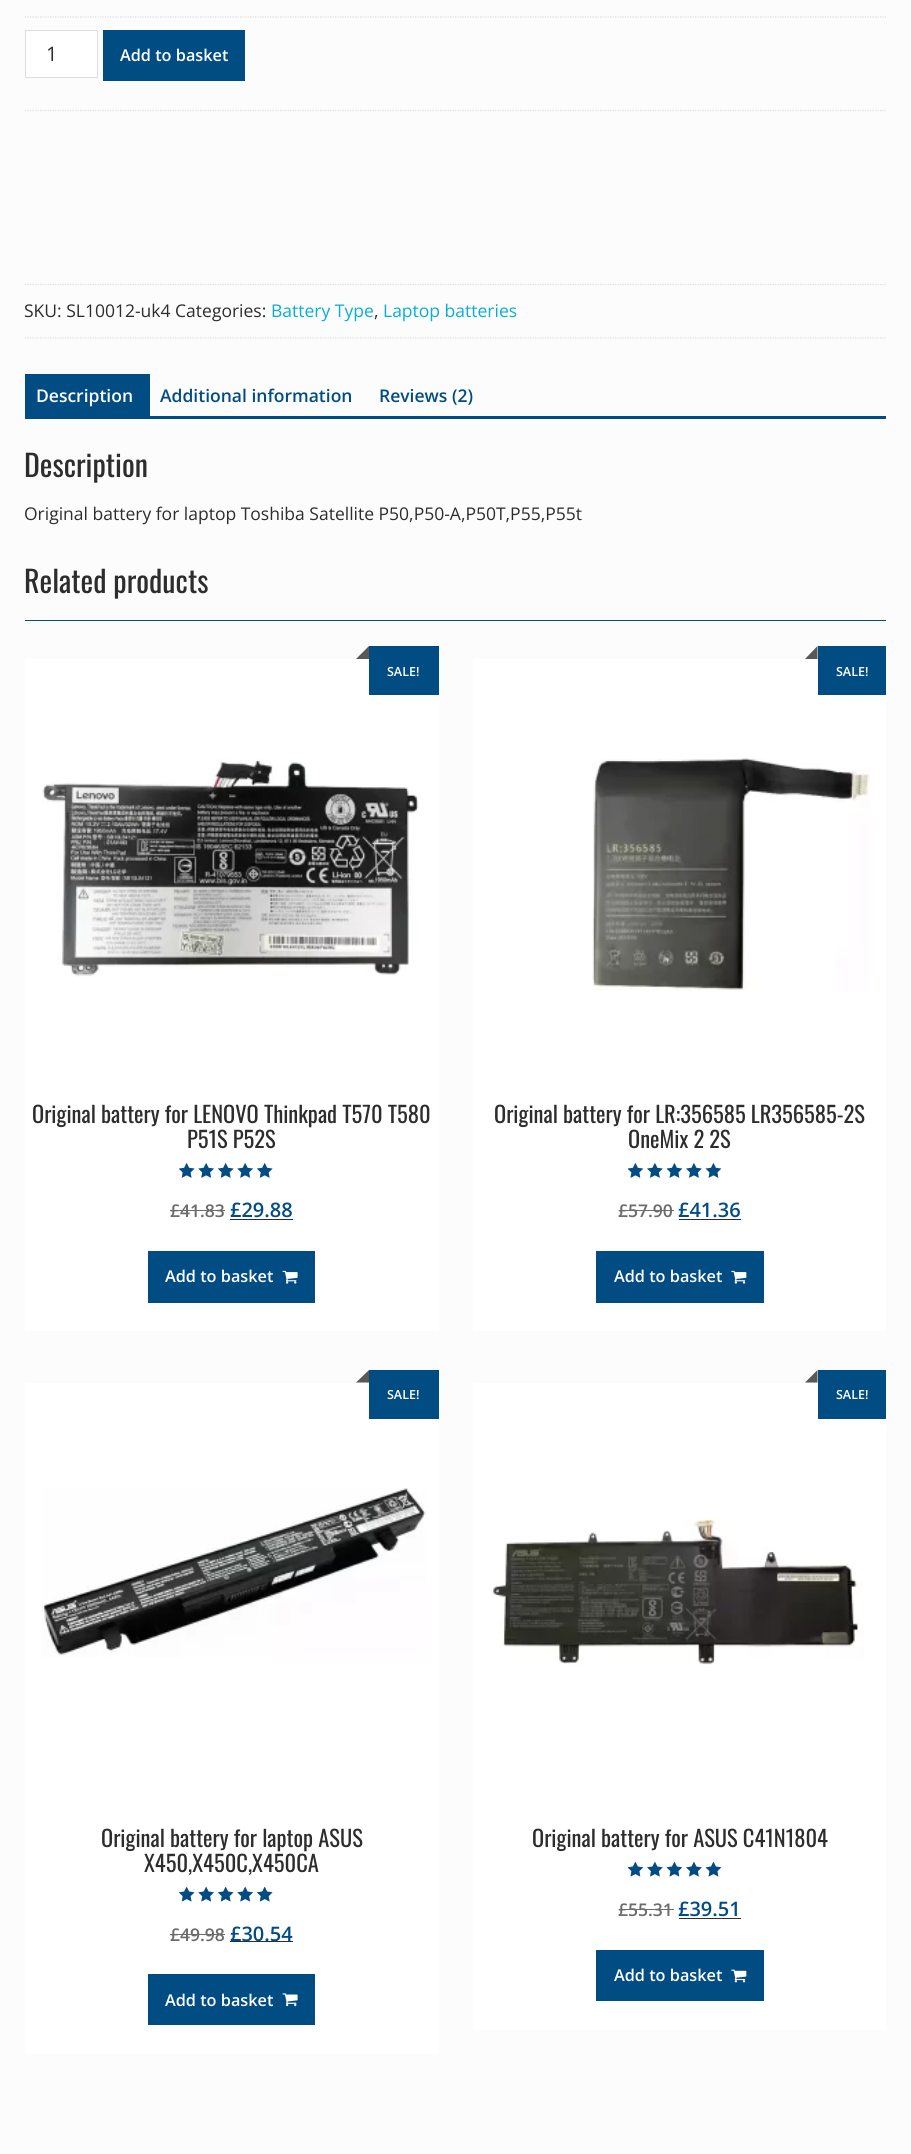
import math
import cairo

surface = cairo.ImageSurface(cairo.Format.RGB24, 911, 2154)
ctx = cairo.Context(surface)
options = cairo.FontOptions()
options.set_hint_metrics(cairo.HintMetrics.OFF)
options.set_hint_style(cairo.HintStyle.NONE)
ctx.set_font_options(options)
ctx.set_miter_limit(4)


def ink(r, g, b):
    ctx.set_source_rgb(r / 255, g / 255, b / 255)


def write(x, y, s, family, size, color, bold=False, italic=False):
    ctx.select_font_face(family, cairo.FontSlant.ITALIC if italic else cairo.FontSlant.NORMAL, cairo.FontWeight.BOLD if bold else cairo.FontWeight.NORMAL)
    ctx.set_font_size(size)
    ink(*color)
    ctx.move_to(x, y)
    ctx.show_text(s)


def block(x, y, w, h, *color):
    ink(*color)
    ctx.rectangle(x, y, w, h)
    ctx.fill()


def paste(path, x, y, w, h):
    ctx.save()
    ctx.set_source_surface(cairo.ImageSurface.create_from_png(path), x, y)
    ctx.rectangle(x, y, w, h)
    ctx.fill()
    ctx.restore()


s1 = dict(family="Open Sans", size=20, color=(45, 45, 45))
s2 = dict(family="Open Sans SemiBold", size=16.25, color=(255, 255, 255))
s3 = dict(family="Open Sans", size=17.5, color=(45, 45, 45))
s4 = dict(family="Open Sans", size=17.5, color=(7, 175, 212))
s5 = dict(family="Open Sans SemiBold", size=17.5, color=(255, 255, 255))
s6 = dict(family="Open Sans SemiBold", size=17.5, color=(2, 76, 132))
s7 = dict(family="Oswald", size=30, color=(45, 45, 45))
s8 = dict(family="Open Sans SemiBold", size=12.5, color=(255, 255, 255))
s9 = dict(family="Oswald", size=22.5, color=(45, 45, 45))
s10 = dict(family="Open Sans SemiBold", size=17.5, color=(108, 108, 108))
s11 = dict(family="Open Sans SemiBold", size=20, color=(2, 76, 132))

ink(252, 252, 252)
ctx.paint()
ctx.new_path()
ctx.move_to(25, 17)
ctx.line_to(886, 17)
ink(221, 221, 221)
ctx.set_line_width(1.2)
ctx.set_dash([1.25, 1.25])
ctx.stroke()
ctx.new_path()
ctx.move_to(25, 110.5)
ctx.line_to(886, 110.5)
ctx.stroke()
ink(255, 255, 255)
ctx.rectangle(25.5, 30.5, 72, 47)
ctx.fill_preserve()
ink(221, 221, 221)
ctx.set_line_width(1)
ctx.set_dash([])
ctx.stroke()
write(46, 61, "1", **s1)
block(103, 30, 142, 51, 2, 76, 132)
write(120, 61, "Add to basket", **s2)
ctx.new_path()
ctx.move_to(25, 284.5)
ctx.line_to(886, 284.5)
ink(221, 221, 221)
ctx.set_line_width(1.2)
ctx.set_dash([1.25, 1.25])
ctx.stroke()
ctx.new_path()
ctx.move_to(25, 338)
ctx.line_to(886, 338)
ctx.stroke()
write(24, 317, "SKU: SL10012-uk4 Categories:", **s3)
write(271, 317, "Battery Type", **s4)
write(374, 317, ",", **s3)
write(383, 317, "Laptop batteries", **s4)
block(25, 374, 125, 45, 2, 76, 132)
write(36, 402, "Description", **s5)
write(160, 402, "Additional information", **s6)
write(379, 402, "Reviews (2)", **s6)
block(150, 416, 736, 3, 2, 76, 132)
write(24, 477, "Description", **s7)
write(24, 520, "Original battery for laptop Toshiba Satellite P50,P50-A,P50T,P55,P55t", **s3)
block(25, 620, 861, 1, 2, 76, 132)
write(24, 593, "Related products", **s7)
block(25, 659, 414, 672, 255, 255, 255)
block(369, 646, 70, 49, 2, 76, 132)
ink(86, 89, 85)
ctx.new_path()
ctx.move_to(369, 646)
ctx.line_to(369, 659)
ctx.line_to(356, 659)
ctx.close_path()
ctx.fill()
write(387, 676, "SALE!", **s8)
paste("pic1.png", 42, 759, 377, 218)
write(32, 1123, "Original battery for LENOVO Thinkpad T570 T580", **s9)
write(187, 1148, "P51S P52S", **s9)
paste("pic2.png", 179, 1163, 94, 15)
paste("pic3.png", 179, 1163, 94, 15)
write(170, 1217, "£41.83", **s10)
block(170, 1210, 55, 1, 108, 108, 108)
write(230, 1217, "£29.88", **s11)
block(230, 1219, 63, 1, 45, 45, 45)
block(148, 1251, 167, 52, 2, 76, 132)
write(165, 1282, "Add to basket", **s2)
paste("pic4.png", 282, 1270, 16, 14)
block(473, 659, 413, 672, 255, 255, 255)
block(818, 646, 68, 49, 2, 76, 132)
ink(86, 89, 85)
ctx.new_path()
ctx.move_to(817.5, 646)
ctx.line_to(817.5, 659)
ctx.line_to(805, 659)
ctx.close_path()
ctx.fill()
write(836, 676, "SALE!", **s8)
paste("pic5.png", 592, 758, 278, 233)
write(494, 1123, "Original battery for LR:356585 LR356585-2S", **s9)
write(628, 1148, "OneMix 2 2S", **s9)
paste("pic6.png", 628, 1163, 94, 15)
paste("pic7.png", 628, 1163, 94, 15)
write(618, 1217, "£57.90", **s10)
block(619, 1210, 55, 1, 108, 108, 108)
write(678, 1217, "£41.36", **s11)
block(679, 1219, 62, 1, 45, 45, 45)
block(596, 1251, 168, 52, 2, 76, 132)
write(614, 1282, "Add to basket", **s2)
paste("pic8.png", 731, 1270, 16, 14)
block(25, 1383, 414, 671, 255, 255, 255)
block(369, 1370, 70, 49, 2, 76, 132)
ink(86, 89, 85)
ctx.new_path()
ctx.move_to(369, 1370)
ctx.line_to(369, 1382.5)
ctx.line_to(356, 1382.5)
ctx.close_path()
ctx.fill()
write(387, 1399, "SALE!", **s8)
paste("pic9.png", 42, 1488, 385, 169)
write(101, 1847, "Original battery for laptop ASUS", **s9)
write(144, 1872, "X450,X450C,X450CA", **s9)
paste("pic11.png", 179, 1887, 94, 15)
paste("pic10.png", 179, 1886, 94, 16)
write(170, 1941, "£49.98", **s10)
block(170, 1934, 55, 1, 108, 108, 108)
block(230, 1941, 63, 1, 45, 45, 45)
write(230, 1941, "£30.54", **s11)
block(148, 1974, 167, 51, 2, 76, 132)
write(165, 2006, "Add to basket", **s2)
paste("pic12.png", 282, 1993, 16, 14)
block(473, 1383, 413, 647, 255, 255, 255)
block(818, 1370, 68, 49, 2, 76, 132)
ink(86, 89, 85)
ctx.new_path()
ctx.move_to(817.5, 1370)
ctx.line_to(817.5, 1382.5)
ctx.line_to(805, 1382.5)
ctx.close_path()
ctx.fill()
write(836, 1399, "SALE!", **s8)
paste("pic13.png", 491, 1516, 373, 150)
write(532, 1847, "Original battery for ASUS C41N1804", **s9)
paste("pic15.png", 628, 1862, 94, 15)
paste("pic14.png", 628, 1861, 93, 16)
write(618, 1916, "£55.31", **s10)
block(619, 1909, 55, 1, 108, 108, 108)
write(678, 1916, "£39.51", **s11)
block(679, 1918, 62, 1, 45, 45, 45)
block(596, 1950, 168, 51, 2, 76, 132)
write(614, 1981, "Add to basket", **s2)
paste("pic16.png", 731, 1969, 16, 14)
surface.write_to_png("screenshot.png")
